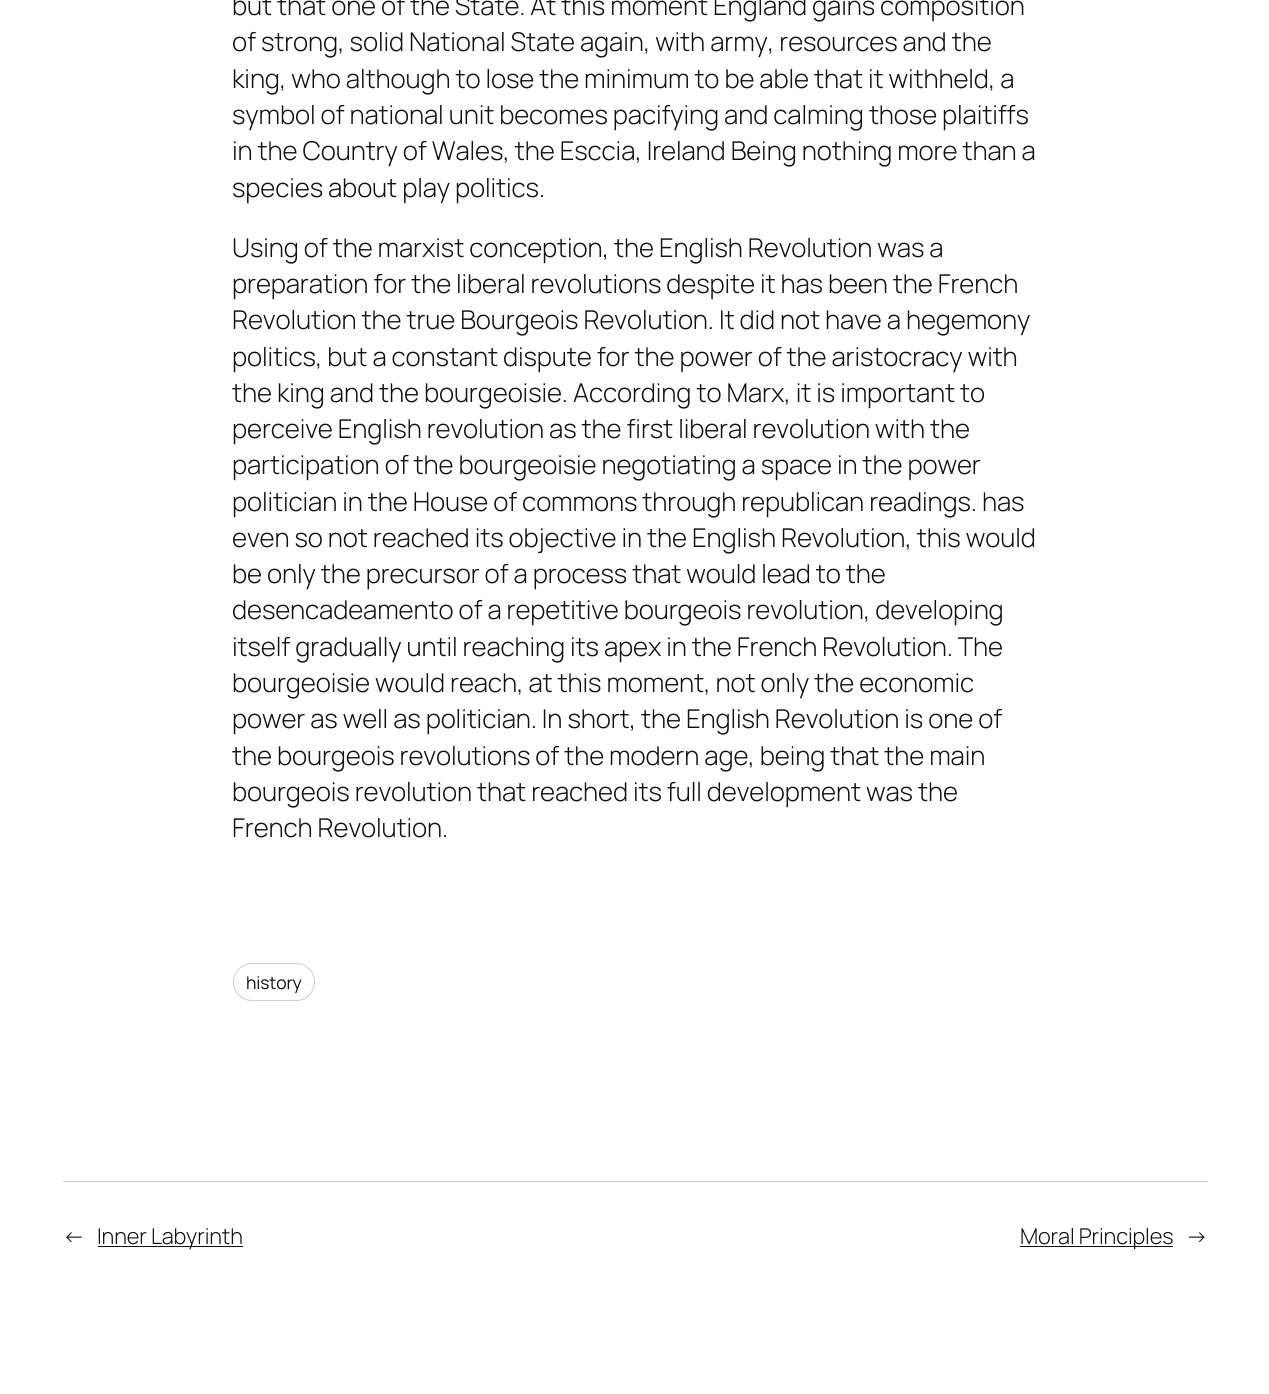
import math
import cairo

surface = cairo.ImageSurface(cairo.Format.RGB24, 1269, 1394)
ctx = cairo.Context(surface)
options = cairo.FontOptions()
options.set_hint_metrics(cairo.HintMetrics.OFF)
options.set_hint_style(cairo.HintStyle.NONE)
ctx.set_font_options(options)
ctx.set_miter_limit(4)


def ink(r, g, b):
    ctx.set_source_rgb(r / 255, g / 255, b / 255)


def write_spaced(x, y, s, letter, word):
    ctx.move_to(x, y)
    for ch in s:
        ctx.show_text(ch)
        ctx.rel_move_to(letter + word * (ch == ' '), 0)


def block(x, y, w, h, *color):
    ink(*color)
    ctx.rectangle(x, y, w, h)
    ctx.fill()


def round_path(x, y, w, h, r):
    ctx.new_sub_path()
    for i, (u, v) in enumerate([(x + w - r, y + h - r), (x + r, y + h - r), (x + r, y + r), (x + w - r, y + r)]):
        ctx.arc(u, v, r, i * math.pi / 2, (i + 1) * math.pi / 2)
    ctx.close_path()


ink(255, 255, 255)
ctx.paint()
ctx.select_font_face("Manrope Light")
ctx.set_font_size(25.9)
ink(17, 17, 17)
write_spaced(232, 15, "but that one of the State. At this moment England gains composition", -0.12, 0)
write_spaced(232, 51, "of strong, solid National State again, with army, resources and the", -0.12, 0)
write_spaced(232, 88, "king, who although to lose the minimum to be able that it withheld, a", -0.12, 0)
write_spaced(232, 124, "symbol of national unit becomes pacifying and calming those plaitiffs", -0.12, 0)
write_spaced(232, 160, "in the Country of Wales, the Esccia, Ireland Being nothing more than a", -0.12, 0)
write_spaced(232, 197, "species about play politics.", -0.12, 0)
write_spaced(232, 257, "Using of the marxist conception, the English Revolution was a", -0.12, 0)
write_spaced(232, 293, "preparation for the liberal revolutions despite it has been the French", -0.12, 0)
write_spaced(232, 329, "Revolution the true Bourgeois Revolution. It did not have a hegemony", -0.12, 0)
write_spaced(232, 366, "politics, but a constant dispute for the power of the aristocracy with", -0.12, 0)
write_spaced(232, 402, "the king and the bourgeoisie. According to Marx, it is important to", -0.12, 0)
write_spaced(232, 438, "perceive English revolution as the first liberal revolution with the", -0.12, 0)
write_spaced(232, 474, "participation of the bourgeoisie negotiating a space in the power", -0.12, 0)
write_spaced(232, 511, "politician in the House of commons through republican readings. has", -0.12, 0)
write_spaced(232, 547, "even so not reached its objective in the English Revolution, this would", -0.12, 0)
write_spaced(232, 583, "be only the precursor of a process that would lead to the", -0.12, 0)
write_spaced(232, 619, "desencadeamento of a repetitive bourgeois revolution, developing", -0.12, 0)
write_spaced(232, 656, "itself gradually until reaching its apex in the French Revolution. The", -0.12, 0)
write_spaced(232, 692, "bourgeoisie would reach, at this moment, not only the economic", -0.12, 0)
write_spaced(232, 728, "power as well as politician. In short, the English Revolution is one of", -0.12, 0)
write_spaced(232, 765, "the bourgeois revolutions of the modern age, being that the main", -0.12, 0)
write_spaced(232, 801, "bourgeois revolution that reached its full development was the", -0.12, 0)
write_spaced(232, 837, "French Revolution.", -0.12, 0)
round_path(233.5, 963.5, 81, 37, 18.5)
ink(207, 207, 207)
ctx.set_line_width(1)
ctx.stroke()
ctx.select_font_face("Manrope")
ctx.set_font_size(17.5)
ink(17, 17, 17)
write_spaced(246, 989, "history", -0.12, 0)
block(63, 1181, 1145, 1, 207, 207, 207)
ctx.select_font_face("Manrope Light")
ctx.set_font_size(21.75)
ink(17, 17, 17)
write_spaced(63, 1244, "←", -0.12, 0)
block(98, 1246, 145, 1, 17, 17, 17)
write_spaced(97, 1244, "Inner Labyrinth", -0.12, 0)
block(1020, 1246, 153, 1, 17, 17, 17)
write_spaced(1020, 1244, "Moral Principles", -0.12, 0)
write_spaced(1186, 1244, "→", -0.12, 0)
surface.write_to_png("screenshot.png")
